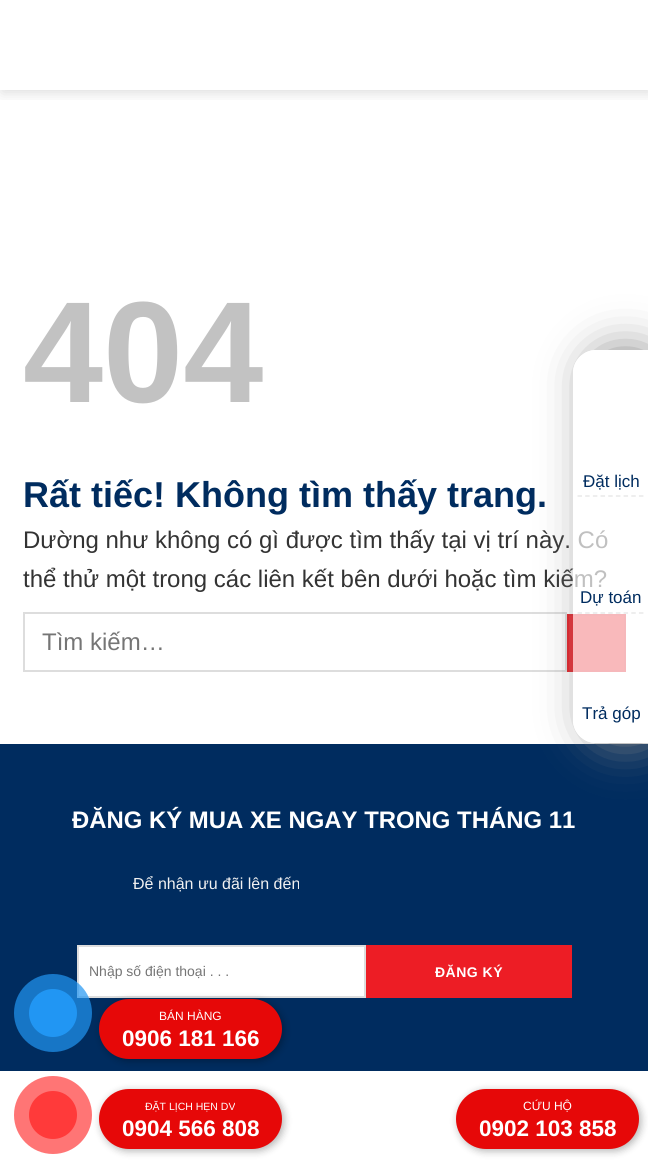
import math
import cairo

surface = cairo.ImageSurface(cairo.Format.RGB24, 648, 1164)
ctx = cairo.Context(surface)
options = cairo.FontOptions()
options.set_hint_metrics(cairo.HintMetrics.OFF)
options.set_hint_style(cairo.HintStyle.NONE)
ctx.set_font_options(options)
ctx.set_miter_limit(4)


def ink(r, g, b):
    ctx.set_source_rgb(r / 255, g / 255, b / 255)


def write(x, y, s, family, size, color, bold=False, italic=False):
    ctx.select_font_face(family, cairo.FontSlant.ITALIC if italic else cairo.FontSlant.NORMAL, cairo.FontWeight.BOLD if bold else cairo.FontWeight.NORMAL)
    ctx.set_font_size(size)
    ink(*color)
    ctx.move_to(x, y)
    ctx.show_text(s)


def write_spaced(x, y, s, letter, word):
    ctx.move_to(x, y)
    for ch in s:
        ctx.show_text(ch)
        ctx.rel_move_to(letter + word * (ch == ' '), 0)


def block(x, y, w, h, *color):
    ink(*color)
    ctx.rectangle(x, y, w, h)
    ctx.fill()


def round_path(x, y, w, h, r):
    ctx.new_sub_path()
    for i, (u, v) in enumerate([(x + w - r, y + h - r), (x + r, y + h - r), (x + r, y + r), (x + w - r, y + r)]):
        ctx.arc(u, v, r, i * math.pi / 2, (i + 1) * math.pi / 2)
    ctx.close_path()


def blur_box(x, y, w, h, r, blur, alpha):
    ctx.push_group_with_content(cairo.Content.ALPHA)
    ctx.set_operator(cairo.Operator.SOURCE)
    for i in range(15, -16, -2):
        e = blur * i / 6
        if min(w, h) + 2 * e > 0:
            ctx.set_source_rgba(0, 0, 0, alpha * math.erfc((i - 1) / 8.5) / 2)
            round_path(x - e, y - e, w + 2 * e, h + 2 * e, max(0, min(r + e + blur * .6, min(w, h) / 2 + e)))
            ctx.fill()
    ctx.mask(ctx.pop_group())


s1 = dict(family="Liberation Sans", size=144, color=(194, 194, 194), bold=True)
s2 = dict(family="Liberation Sans", size=36, color=(0, 44, 95), bold=True)
s3 = dict(family="Liberation Sans", size=24, color=(51, 51, 51))
s4 = dict(family="Liberation Sans", size=24, color=(117, 117, 117))
s5 = dict(family="Liberation Sans", size=23.9, color=(255, 255, 255), bold=True)
s6 = dict(family="Liberation Sans", size=16, color=(241, 241, 241))
s7 = dict(family="Liberation Sans", size=14, color=(117, 117, 117))
s8 = dict(family="Liberation Sans", size=17, color=(0, 44, 95))
s9 = dict(family="Liberation Sans", size=12, color=(255, 255, 255))
s10 = dict(family="Liberation Sans", size=22.5, color=(255, 255, 255), bold=True)
s11 = dict(family="Liberation Sans", size=10.5, color=(255, 255, 255))

ink(255, 255, 255)
ctx.paint()
ctx.save()
ctx.rectangle(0, 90, 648, 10)
ctx.clip()
ink(0, 0, 0)
blur_box(2, 2, 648, 90, 0, 7.5, 0.15)
ctx.restore()
write(23, 402, "404", **s1)
write(23, 507, "Rất tiếc! Không tìm thấy trang.", **s2)
write(23, 548, "Dường như không có gì được tìm thấy tại vị trí này. Có", **s3)
write(23, 587, "thể thử một trong các liên kết bên dưới hoặc tìm kiếm?", **s3)
ctx.rectangle(24, 613, 542, 58)
ink(221, 221, 221)
ctx.stroke()
write(42, 650, "Tìm kiếm…", **s4)
ink(237, 28, 36)
ctx.rectangle(568, 615, 57, 56)
ctx.fill_preserve()
ink(225, 27, 34)
ctx.stroke()
block(0, 744, 648, 327, 0, 44, 95)
write(72, 828, "ĐĂNG KÝ MUA XE NGAY TRONG THÁNG 11", **s5)
write(133, 889, "Để nhận ưu đãi lên đến", **s6)
ink(255, 255, 255)
ctx.rectangle(78, 946, 287, 51)
ctx.fill_preserve()
ink(221, 221, 221)
ctx.stroke()
write(89, 976, "Nhập số điện thoại . . .", **s7)
block(366, 945, 206, 53, 237, 29, 37)
ctx.select_font_face("Liberation Sans", cairo.FontSlant.NORMAL, cairo.FontWeight.BOLD)
ink(255, 255, 255)
write_spaced(435, 977, "ĐĂNG KÝ", 0.5, 0)
ctx.save()
ctx.set_fill_rule(cairo.FillRule.EVEN_ODD)
ctx.new_path()
ctx.move_to(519, 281)
ctx.line_to(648, 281)
ctx.line_to(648, 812)
ctx.line_to(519, 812)
ctx.close_path()
ctx.move_to(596, 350)
ctx.line_to(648, 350)
ctx.line_to(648, 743)
ctx.line_to(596, 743)
ctx.curve_to(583.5, 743, 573, 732.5, 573, 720)
ctx.line_to(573, 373)
ctx.curve_to(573, 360.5, 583.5, 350, 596, 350)
ctx.close_path()
ctx.clip()
ink(136, 136, 136)
blur_box(588, 350, 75, 393, 23, 22.5, 1)
ctx.restore()
ctx.set_source_rgba(1, 1, 1, 0.69)
ctx.new_path()
ctx.move_to(596, 350)
ctx.line_to(648, 350)
ctx.line_to(648, 743)
ctx.line_to(596, 743)
ctx.curve_to(583.5, 743, 573, 732.5, 573, 720)
ctx.line_to(573, 373)
ctx.curve_to(573, 360.5, 583.5, 350, 596, 350)
ctx.close_path()
ctx.fill()
ctx.new_path()
ctx.move_to(577.5, 496)
ctx.line_to(643.5, 496)
ink(233, 233, 233)
ctx.set_line_width(1.5)
ctx.set_dash([4.5, 3.18])
ctx.stroke()
write(583, 487, "Đặt lịch", **s8)
ctx.new_path()
ctx.move_to(577.5, 613)
ctx.line_to(643.5, 613)
ink(233, 233, 233)
ctx.stroke()
write(580, 603, "Dự toán", **s8)
write(582, 719, "Trả góp", **s8)
ink(0, 0, 0)
blur_box(101, 1001, 183, 60, 30, 4, 0.3)
ctx.set_source_rgba(0.129, 0.588, 0.953, 0.7)
ctx.arc(53, 1013, 39, 0, 2 * math.pi)
ctx.fill()
ink(33, 150, 243)
ctx.arc(53, 1013, 24, 0, 2 * math.pi)
ctx.fill()
ink(0, 0, 0)
blur_box(101, 1091, 183, 60, 30, 4, 0.3)
ink(255, 117, 117)
ctx.arc(53, 1115, 39, 0, 2 * math.pi)
ctx.fill()
ink(255, 58, 58)
ctx.arc(53, 1115, 24, 0, 2 * math.pi)
ctx.fill()
ink(230, 8, 8)
round_path(99, 999, 183, 60, 30)
ctx.fill()
write(159, 1020, "BÁN HÀNG", **s9)
write(122, 1046, "0906 181 166", **s10)
ink(230, 8, 8)
round_path(99, 1089, 183, 60, 30)
ctx.fill()
write(145, 1110, "ĐẶT LỊCH HẸN DV", **s11)
write(122, 1136, "0904 566 808", **s10)
ink(0, 0, 0)
blur_box(458, 1091, 183, 60, 30, 4, 0.3)
ink(230, 8, 8)
round_path(456, 1089, 183, 60, 30)
ctx.fill()
write(523, 1110, "CỨU HỘ", **s9)
write(479, 1136, "0902 103 858", **s10)
surface.write_to_png("screenshot.png")
